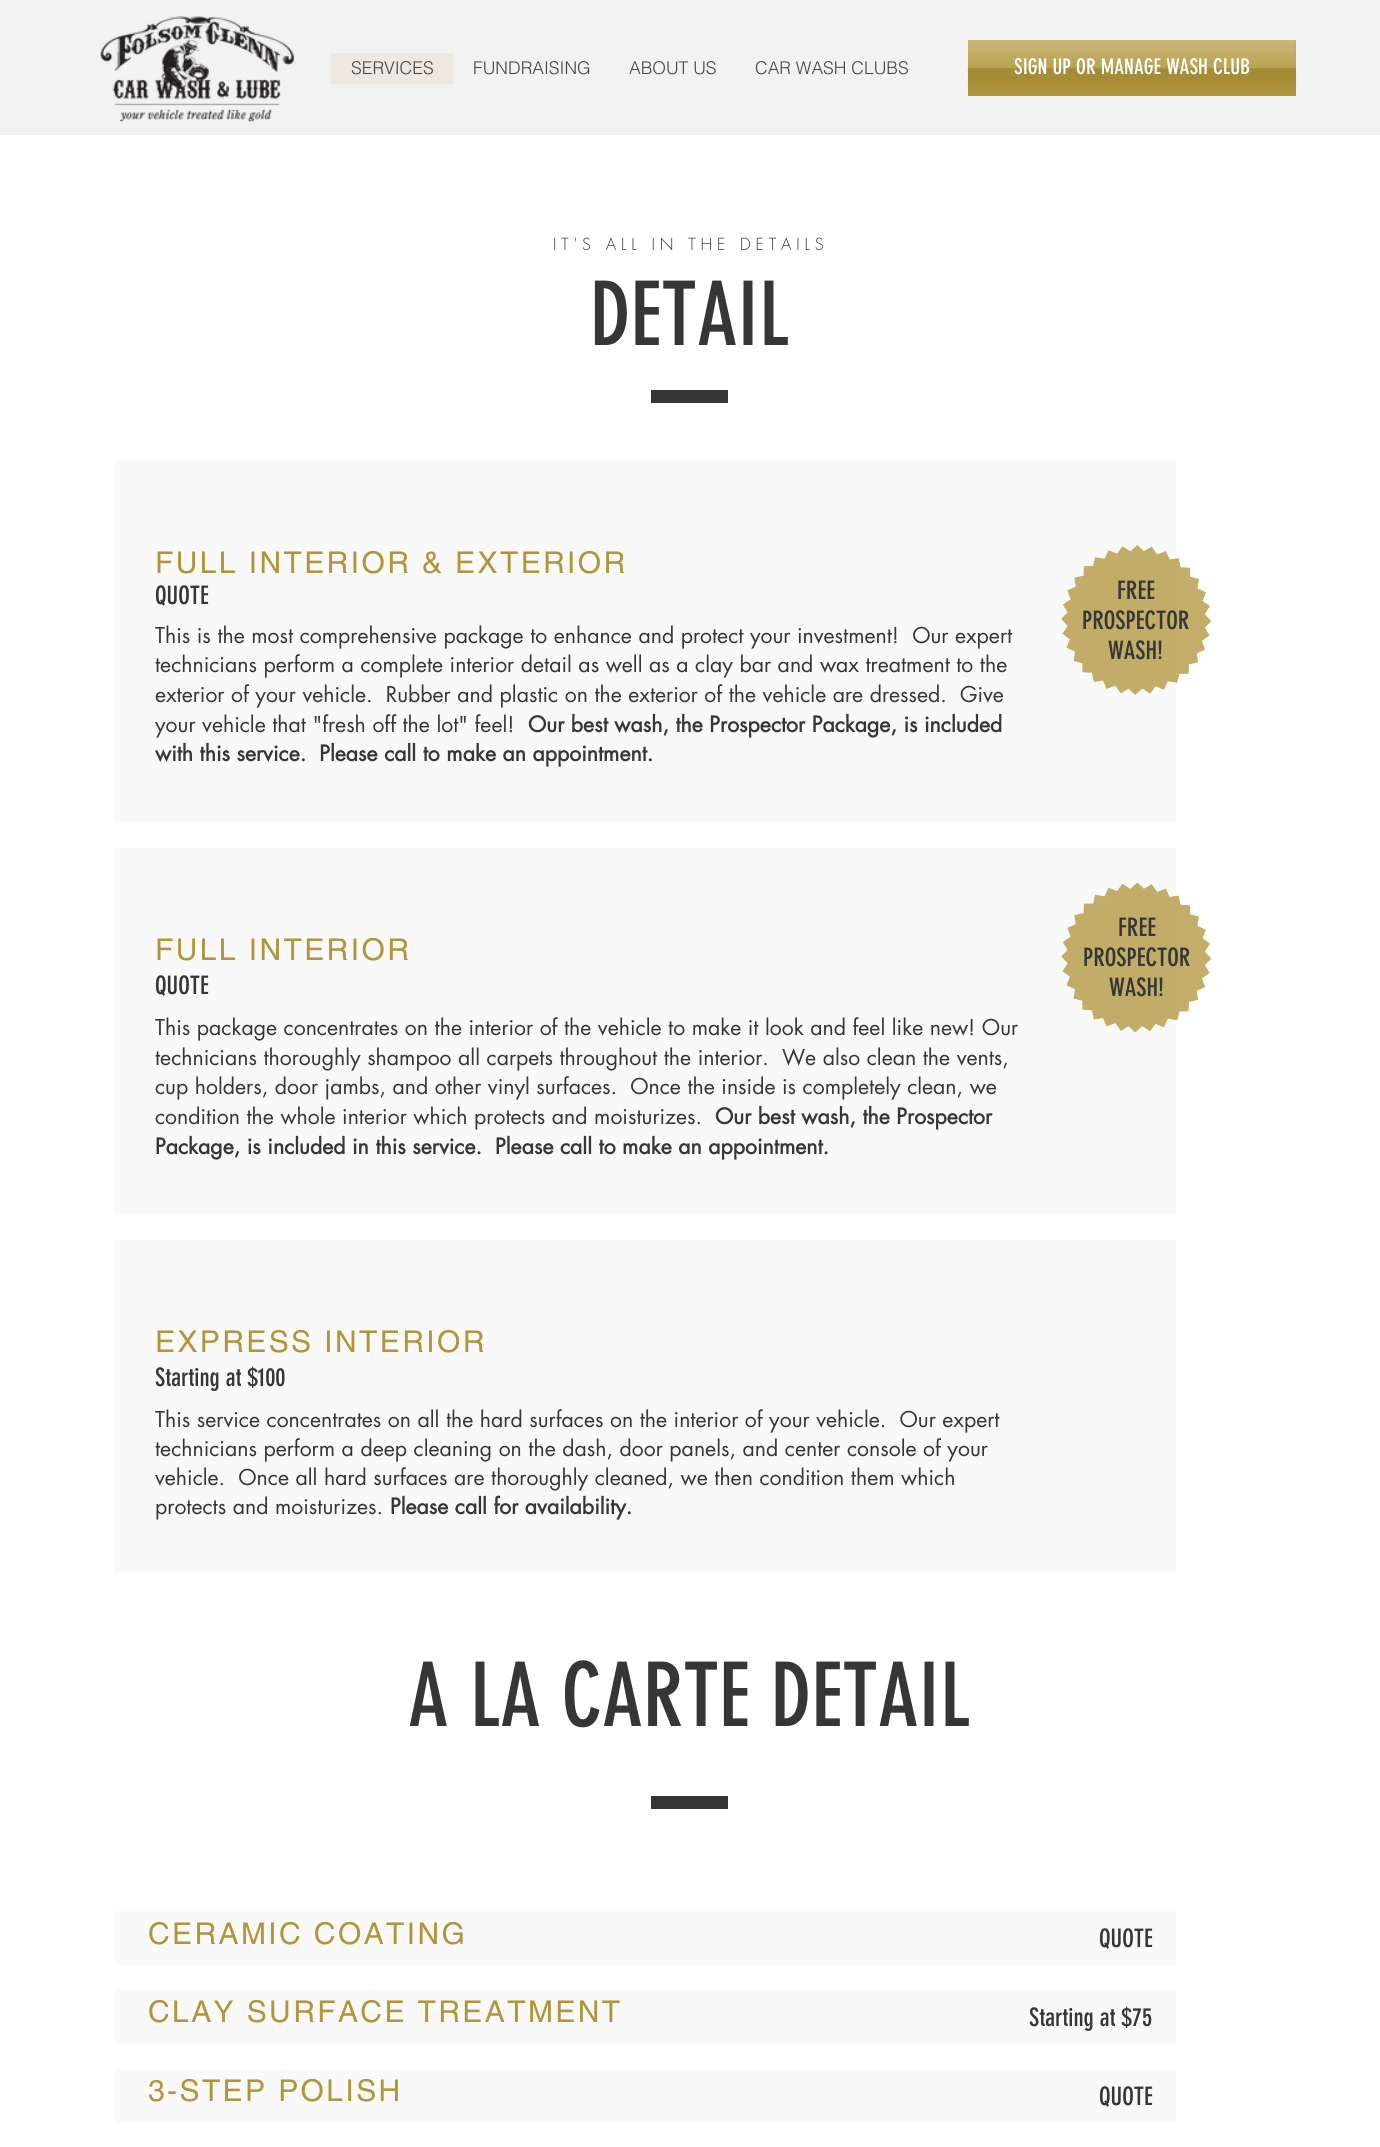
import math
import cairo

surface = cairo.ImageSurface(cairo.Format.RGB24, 1380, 2147)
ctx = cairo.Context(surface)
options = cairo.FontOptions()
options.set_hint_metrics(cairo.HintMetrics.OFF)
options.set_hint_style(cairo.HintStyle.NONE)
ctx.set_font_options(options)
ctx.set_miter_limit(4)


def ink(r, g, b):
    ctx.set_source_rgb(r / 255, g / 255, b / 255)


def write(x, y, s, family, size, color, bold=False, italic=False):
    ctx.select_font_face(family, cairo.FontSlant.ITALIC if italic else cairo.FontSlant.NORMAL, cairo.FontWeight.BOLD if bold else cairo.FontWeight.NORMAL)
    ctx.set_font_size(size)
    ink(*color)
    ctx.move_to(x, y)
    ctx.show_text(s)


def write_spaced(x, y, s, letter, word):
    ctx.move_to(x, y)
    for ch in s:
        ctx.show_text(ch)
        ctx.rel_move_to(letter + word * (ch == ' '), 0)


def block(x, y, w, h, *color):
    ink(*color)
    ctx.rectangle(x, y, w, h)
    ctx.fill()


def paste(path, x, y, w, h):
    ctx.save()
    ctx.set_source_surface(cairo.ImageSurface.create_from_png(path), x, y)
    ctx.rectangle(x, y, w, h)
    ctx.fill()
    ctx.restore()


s1 = dict(family="helvetica Light", size=17.5, color=(68, 68, 68))
s2 = dict(family="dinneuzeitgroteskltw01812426", size=21.25, color=(255, 255, 255))
s3 = dict(family="dinneuzeitgroteskltw01812426", size=87.5, color=(54, 54, 54))
s4 = dict(family="dinneuzeitgroteskltw01812426", size=25, color=(54, 54, 54))
s5 = dict(family="futura", size=21.25, color=(54, 54, 54))
s6 = dict(family="futura", size=21.25, color=(54, 54, 54), bold=True)

ink(255, 255, 255)
ctx.paint()
block(0, 0, 1380, 135, 242, 242, 242)
paste("pic1.png", 100, 16, 195, 106)
block(331, 53, 122, 31, 237, 233, 225)
write(351, 74, "SERVICES", **s1)
write(473, 74, "FUNDRAISING", **s1)
write(629, 74, "ABOUT US", **s1)
write(755, 74, "CAR WASH CLUBS", **s1)
block(968, 40, 328, 56, 176, 149, 58)
paste("pic2.png", 967, 40, 330, 54)
write(1014, 74, "SIGN UP OR MANAGE WASH CLUB", **s2)
ctx.select_font_face("futura Light")
ctx.set_font_size(16.25)
ink(54, 54, 54)
write_spaced(553, 250, "IT'S ALL IN THE DETAILS", 4.9, 0)
write(590, 345, "DETAIL", **s3)
block(651, 390, 77, 13, 54, 54, 54)
block(115, 460, 1061, 363, 249, 249, 249)
ctx.select_font_face("helvetica")
ctx.set_font_size(30)
ink(176, 149, 58)
write_spaced(155, 573, "FULL INTERIOR & EXTERIOR", 2.4, 0)
write(155, 604, "QUOTE", **s4)
write(155, 643, "This is the most comprehensive package to enhance and protect your investment!  Our expert", **s5)
write(155, 672, "technicians perform a complete interior detail as well as a clay bar and wax treatment to the", **s5)
write(155, 702, "exterior of your vehicle.  Rubber and plastic on the exterior of the vehicle are dressed.  Give", **s5)
write(155, 732, "your vehicle that \"fresh off the lot\" feel!", **s5)
write(528, 732, "Our best wash, the Prospector Package, is included", **s6)
write(155, 761, "with this service.  Please call to make an appointment.", **s6)
block(115, 848, 1061, 367, 249, 249, 249)
ctx.select_font_face("helvetica")
ctx.set_font_size(30)
ink(176, 149, 58)
write_spaced(155, 960, "FULL INTERIOR", 2.4, 0)
write(155, 994, "QUOTE", **s4)
write(155, 1035, "This package concentrates on the interior of the vehicle to make it look and feel like new! Our", **s5)
write(155, 1065, "technicians thoroughly shampoo all carpets throughout the interior.  We also clean the vents,", **s5)
write(155, 1094, "cup holders, door jambs, and other vinyl surfaces.  Once the inside is completely clean, we", **s5)
write(155, 1124, "condition the whole interior which protects and moisturizes.", **s5)
write(715, 1124, "Our best wash, the Prospector", **s6)
write(155, 1154, "Package, is included in this service.  Please call to make an appointment.", **s6)
block(115, 1240, 1061, 334, 249, 249, 249)
ctx.select_font_face("helvetica")
ctx.set_font_size(30)
ink(176, 149, 58)
write_spaced(155, 1352, "EXPRESS INTERIOR", 2.4, 0)
write(155, 1386, "Starting at $100", **s4)
write(155, 1427, "This service concentrates on all the hard surfaces on the interior of your vehicle.  Our expert", **s5)
write(155, 1456, "technicians perform a deep cleaning on the dash, door panels, and center console of your", **s5)
write(155, 1485, "vehicle.  Once all hard surfaces are thoroughly cleaned, we then condition them which", **s5)
write(155, 1514, "protects and moisturizes.", **s5)
write(390, 1514, "Please call for availability.", **s6)
paste("pic3.png", 1061, 545, 151, 150)
write(1117, 599, "FREE", **s4)
write(1082, 629, "PROSPECTOR", **s4)
write(1108, 659, "WASH!", **s4)
paste("pic4.png", 1061, 882, 151, 151)
write(1118, 936, "FREE", **s4)
write(1083, 966, "PROSPECTOR", **s4)
write(1109, 996, "WASH!", **s4)
write(408, 1726, "A LA CARTE DETAIL", **s3)
block(651, 1796, 77, 13, 54, 54, 54)
block(115, 1911, 1061, 54, 249, 249, 249)
ctx.select_font_face("helvetica")
ctx.set_font_size(30)
ink(176, 149, 58)
write_spaced(148, 1944, "CERAMIC COATING", 2.4, 0)
write(1099, 1947, "QUOTE", **s4)
block(115, 1990, 1061, 54, 249, 249, 249)
ctx.select_font_face("helvetica")
ctx.set_font_size(30)
ink(176, 149, 58)
write_spaced(148, 2022, "CLAY SURFACE TREATMENT", 2.4, 0)
write(1029, 2026, "Starting at $75", **s4)
block(115, 2069, 1061, 54, 249, 249, 249)
ctx.select_font_face("helvetica")
ctx.set_font_size(30)
ink(176, 149, 58)
write_spaced(148, 2101, "3-STEP POLISH", 2.4, 0)
write(1099, 2105, "QUOTE", **s4)
surface.write_to_png("screenshot.png")
